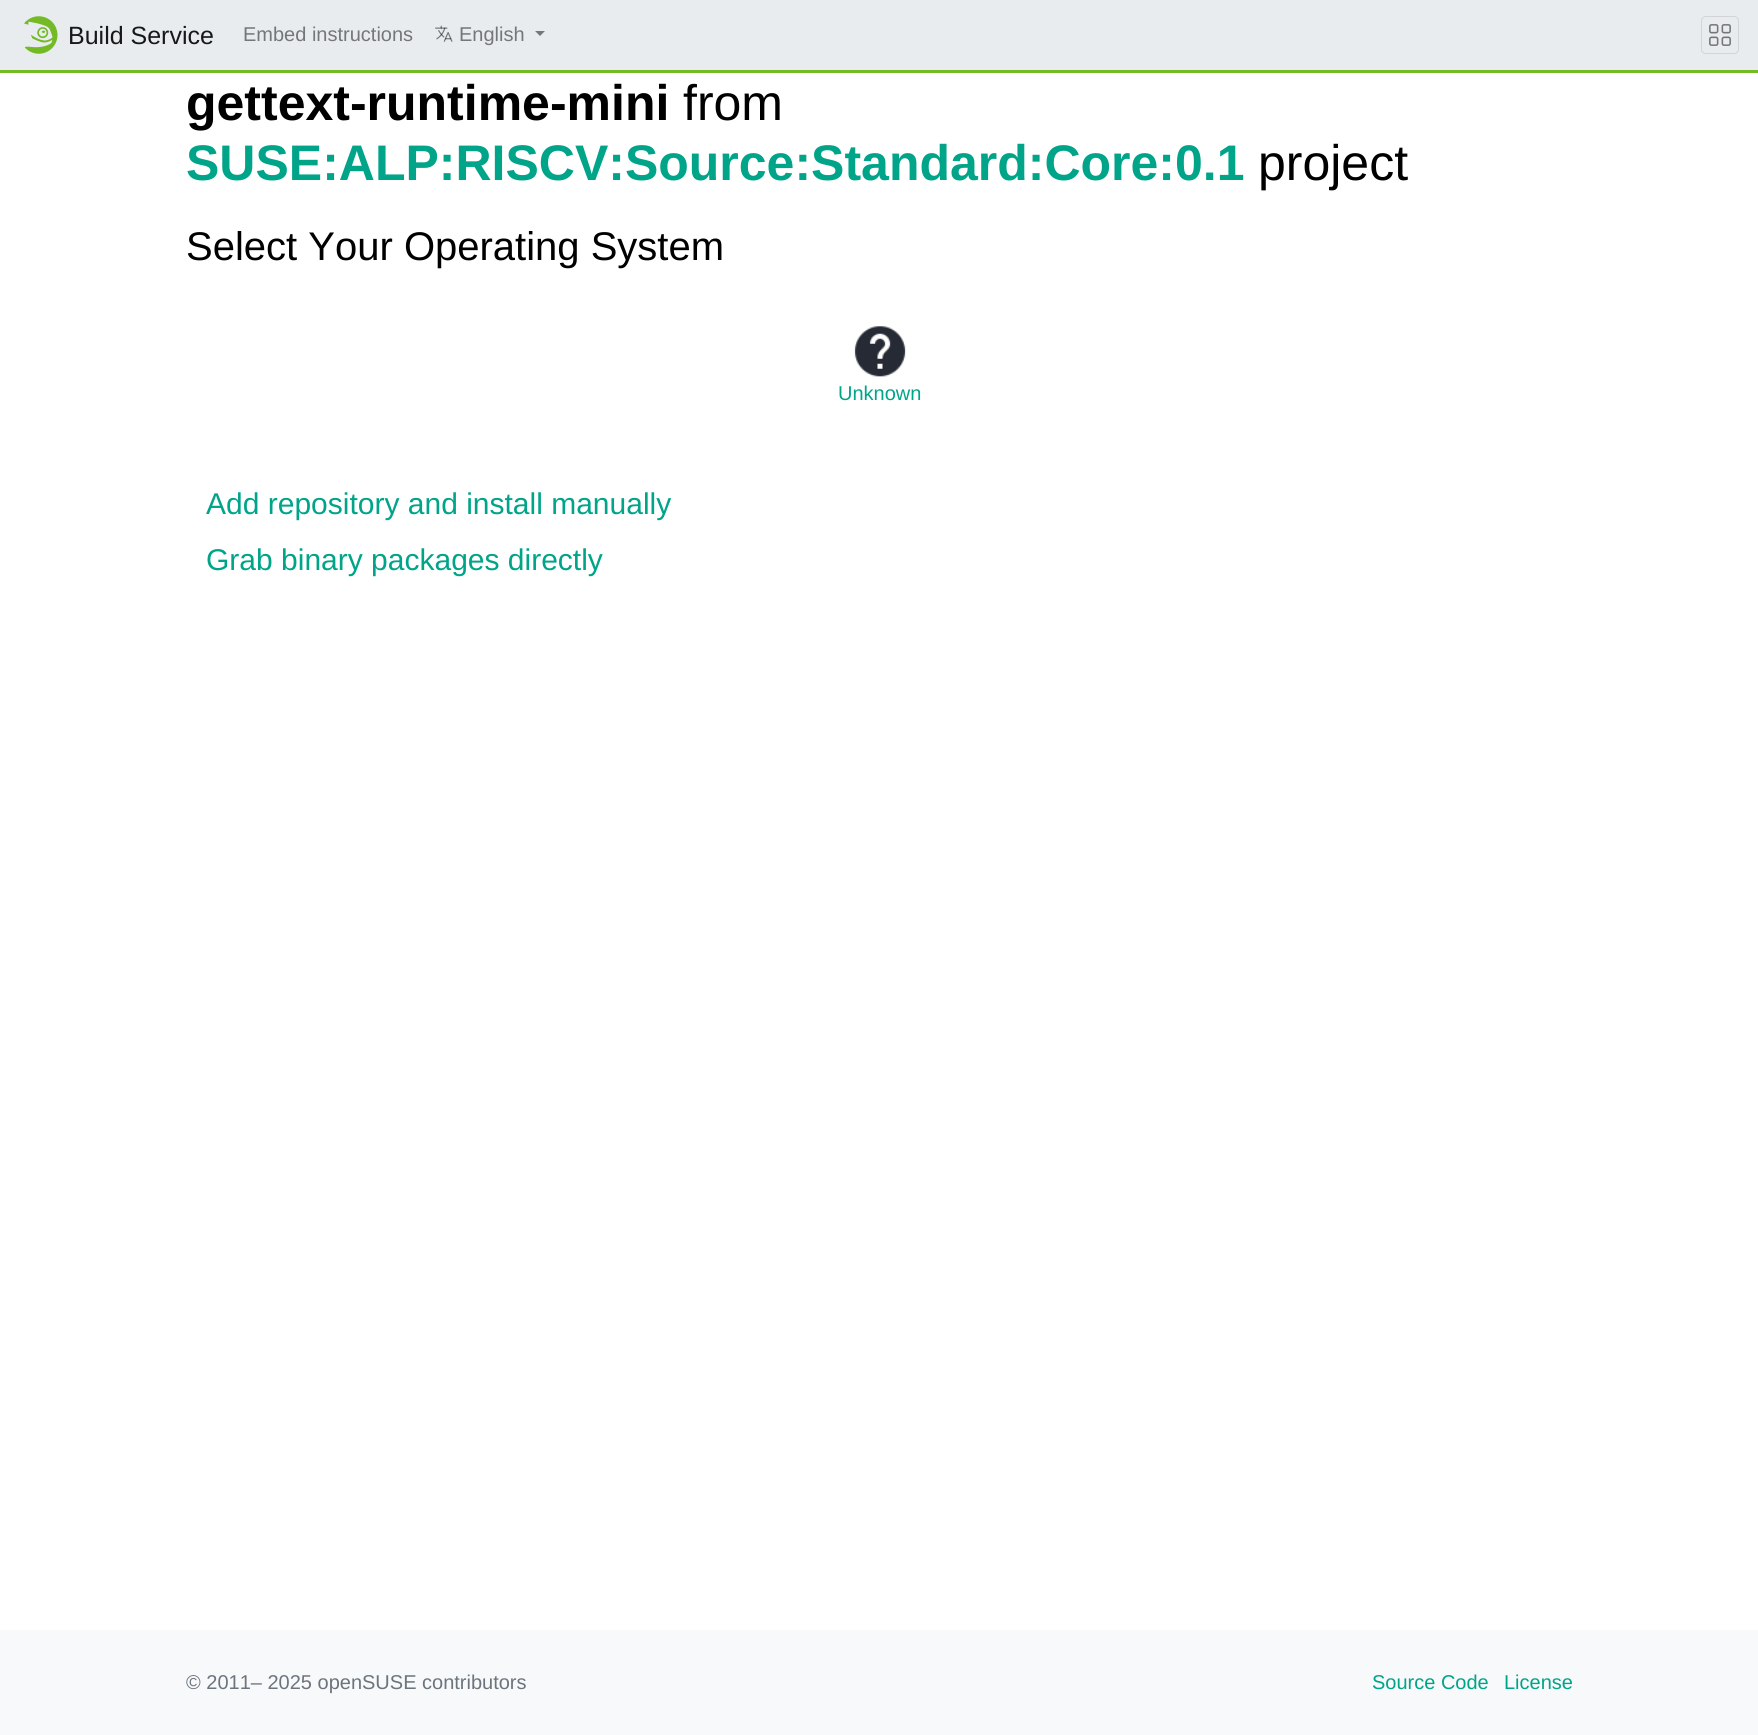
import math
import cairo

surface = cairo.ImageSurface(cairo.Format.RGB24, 1758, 1735)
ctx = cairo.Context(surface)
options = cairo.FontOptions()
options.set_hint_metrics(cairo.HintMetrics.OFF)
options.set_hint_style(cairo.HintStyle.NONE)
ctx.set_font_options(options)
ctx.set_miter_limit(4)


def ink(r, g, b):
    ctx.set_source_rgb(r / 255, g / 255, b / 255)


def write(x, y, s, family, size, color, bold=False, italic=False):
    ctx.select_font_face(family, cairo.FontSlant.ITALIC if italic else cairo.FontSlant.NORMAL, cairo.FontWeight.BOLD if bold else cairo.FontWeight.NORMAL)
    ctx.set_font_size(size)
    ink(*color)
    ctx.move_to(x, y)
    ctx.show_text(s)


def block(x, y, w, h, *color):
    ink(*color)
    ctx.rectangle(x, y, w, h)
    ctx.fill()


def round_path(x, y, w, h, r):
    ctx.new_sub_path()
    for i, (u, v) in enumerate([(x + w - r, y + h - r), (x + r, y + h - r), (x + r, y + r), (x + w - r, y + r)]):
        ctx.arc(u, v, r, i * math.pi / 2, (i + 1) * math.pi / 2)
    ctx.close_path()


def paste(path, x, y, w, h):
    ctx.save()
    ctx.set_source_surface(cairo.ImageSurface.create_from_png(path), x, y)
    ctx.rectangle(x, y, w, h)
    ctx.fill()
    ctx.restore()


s1 = dict(family="Liberation Sans", size=25, color=(23, 24, 24))
s2 = dict(family="Liberation Sans", size=20, color=(117, 118, 120))
s3 = dict(family="Liberation Sans", size=50, color=(0, 0, 0), bold=True)
s4 = dict(family="Liberation Sans", size=50, color=(0, 0, 0))
s5 = dict(family="Liberation Sans", size=50, color=(0, 164, 137), bold=True)
s6 = dict(family="Liberation Sans", size=40, color=(0, 0, 0))
s7 = dict(family="Liberation Sans", size=20, color=(0, 164, 137))
s8 = dict(family="Liberation Sans", size=30, color=(0, 164, 137))
s9 = dict(family="Liberation Sans", size=20, color=(108, 117, 125))

ink(255, 255, 255)
ctx.paint()
block(0, 0, 1758, 70, 233, 236, 239)
block(0, 70, 1758, 3, 115, 186, 37)
paste("pic1.png", 24, 16, 34, 38)
write(68, 44, "Build Service", **s1)
write(243, 41, "Embed instructions", **s2)
paste("pic2.png", 435, 25, 18, 17)
write(459, 41, "English", **s2)
ctx.new_path()
ctx.move_to(535, 31)
ctx.line_to(545, 31)
ctx.line_to(540, 36)
ctx.close_path()
ctx.fill()
round_path(1701.5, 16.5, 37, 37, 4.5)
ink(210, 212, 215)
ctx.set_line_width(1)
ctx.stroke()
paste("pic3.png", 1709, 24, 22, 22)
write(186, 120, "gettext-runtime-mini", **s3)
write(683, 120, "from", **s4)
write(186, 180, "SUSE:ALP:RISCV:Source:Standard:Core:0.1", **s5)
write(1258, 180, "project", **s4)
write(186, 260, "Select Your Operating System", **s6)
paste("pic4.png", 854, 326, 52, 51)
write(838, 400, "Unknown", **s7)
write(206, 514, "Add repository and install manually", **s8)
write(206, 570, "Grab binary packages directly", **s8)
block(0, 1630, 1758, 105, 248, 249, 250)
write(186, 1689, "© 2011– 2025 openSUSE contributors", **s9)
write(1372, 1689, "Source Code", **s7)
write(1504, 1689, "License", **s7)
surface.write_to_png("screenshot.png")
